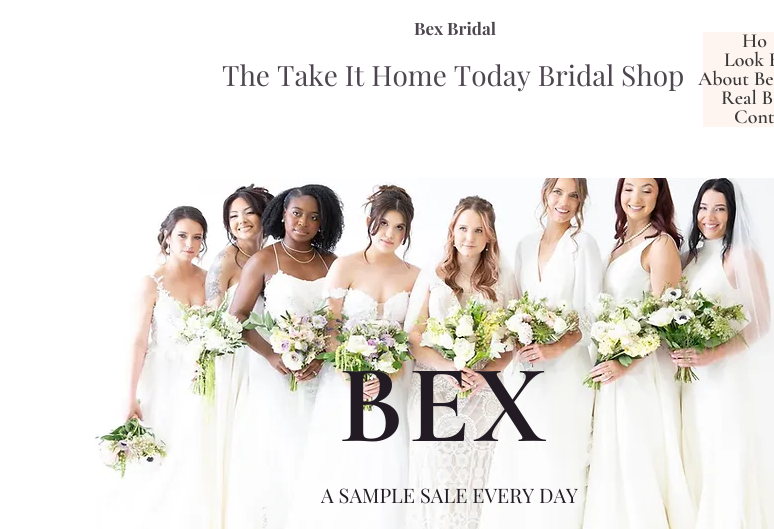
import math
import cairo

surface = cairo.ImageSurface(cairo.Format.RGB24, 774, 529)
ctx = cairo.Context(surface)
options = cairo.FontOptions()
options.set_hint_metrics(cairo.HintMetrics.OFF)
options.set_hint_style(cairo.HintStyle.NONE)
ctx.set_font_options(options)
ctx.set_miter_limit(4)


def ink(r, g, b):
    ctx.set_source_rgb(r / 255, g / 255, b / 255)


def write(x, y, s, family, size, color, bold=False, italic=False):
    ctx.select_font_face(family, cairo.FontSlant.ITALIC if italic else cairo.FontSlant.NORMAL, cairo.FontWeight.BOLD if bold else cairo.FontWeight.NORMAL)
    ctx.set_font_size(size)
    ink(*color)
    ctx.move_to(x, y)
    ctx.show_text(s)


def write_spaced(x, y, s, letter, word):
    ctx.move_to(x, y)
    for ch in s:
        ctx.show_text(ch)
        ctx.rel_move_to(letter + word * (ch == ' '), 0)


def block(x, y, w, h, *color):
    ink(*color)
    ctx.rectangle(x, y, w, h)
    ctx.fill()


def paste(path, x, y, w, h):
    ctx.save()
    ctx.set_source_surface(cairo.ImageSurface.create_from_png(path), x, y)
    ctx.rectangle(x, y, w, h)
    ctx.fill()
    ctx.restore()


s1 = dict(family="Playfair Display", size=17, color=(78, 70, 79), bold=True)
s2 = dict(family="Playfair Display", size=28, color=(78, 70, 79))
s3 = dict(family="Cormorant Garamond SemiBold", size=20, color=(55, 55, 55))
s4 = dict(family="Playfair Display", size=20, color=(34, 27, 35))

ink(255, 255, 255)
ctx.paint()
write(414, 35, "Bex Bridal", **s1)
write(222, 86, "The Take It Home Today Bridal Shop", **s2)
block(703, 32, 71, 95, 255, 245, 240)
write(742, 47, "Ho", **s3)
write(724, 66, "Look B", **s3)
write(698, 85, "About Be", **s3)
write(721, 104, "Real B", **s3)
write(734, 123, "Cont", **s3)
paste("pic1.png", 95, 178, 679, 351)
ctx.select_font_face("Cormorant Garamond", cairo.FontSlant.NORMAL, cairo.FontWeight.BOLD)
ctx.set_font_size(112)
ink(34, 27, 35)
write_spaced(338, 441, "BEX", 3.5, 0)
write(321, 503, "A SAMPLE SALE EVERY DAY", **s4)
surface.write_to_png("screenshot.png")
